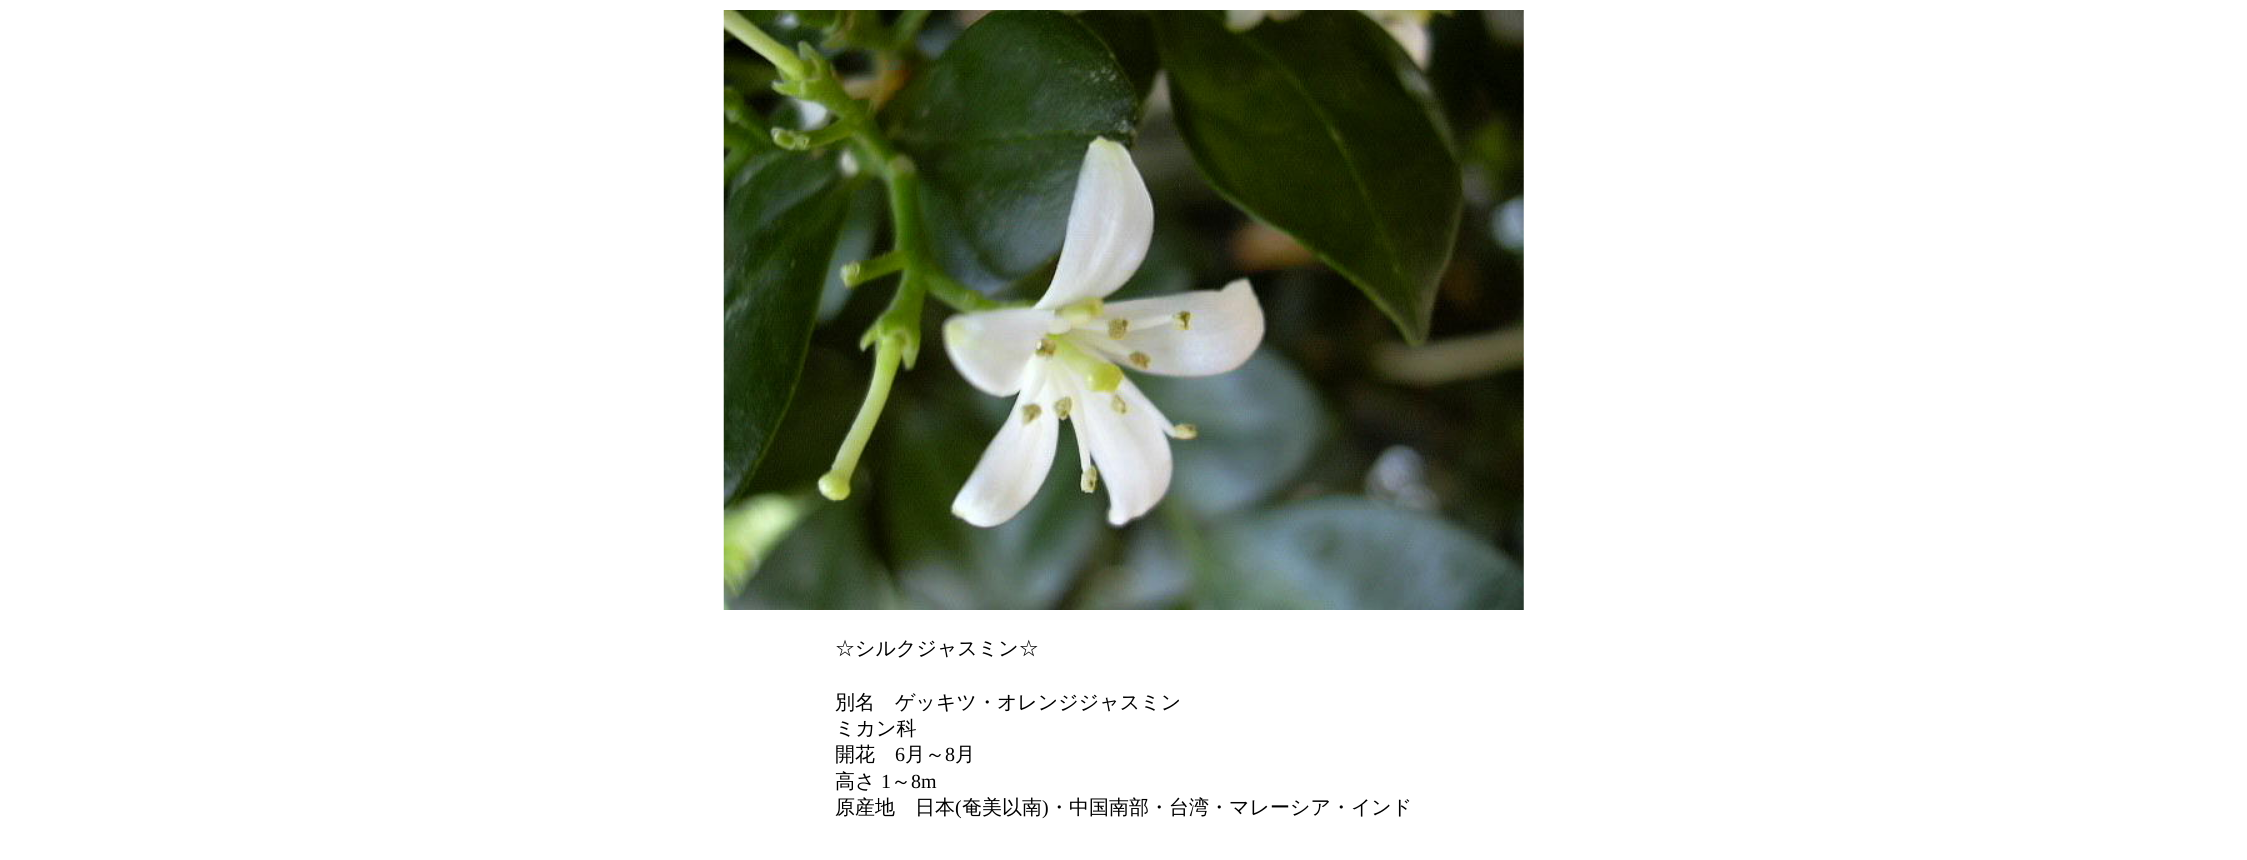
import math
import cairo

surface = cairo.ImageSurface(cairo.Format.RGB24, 2247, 860)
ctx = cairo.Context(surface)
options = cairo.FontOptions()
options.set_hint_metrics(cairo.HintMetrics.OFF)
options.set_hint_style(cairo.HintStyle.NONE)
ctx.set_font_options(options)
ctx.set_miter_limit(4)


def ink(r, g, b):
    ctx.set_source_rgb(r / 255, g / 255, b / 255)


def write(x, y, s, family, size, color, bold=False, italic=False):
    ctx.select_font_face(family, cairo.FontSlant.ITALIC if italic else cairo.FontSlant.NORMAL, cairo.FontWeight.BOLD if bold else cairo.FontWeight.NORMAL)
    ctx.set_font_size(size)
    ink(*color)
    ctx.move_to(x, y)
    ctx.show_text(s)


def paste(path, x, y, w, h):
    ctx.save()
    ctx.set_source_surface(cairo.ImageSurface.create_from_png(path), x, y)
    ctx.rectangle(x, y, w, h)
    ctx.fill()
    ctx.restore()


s1 = dict(family="WenQuanYi Zen Hei Medium", size=20, color=(0, 0, 0))
s2 = dict(family="Liberation Serif", size=20, color=(0, 0, 0))

ink(255, 255, 255)
ctx.paint()
paste("pic1.png", 723, 10, 801, 600)
write(835, 655, "☆シルクジャスミン☆", **s1)
write(835, 709, "別名　ゲッキツ・オレンジジャスミン", **s1)
write(835, 735, "ミカン科", **s1)
write(835, 761, "開花", **s1)
write(895, 761, "6", **s2)
write(905, 761, "月～", **s1)
write(945, 761, "8", **s2)
write(955, 761, "月", **s1)
write(835, 788, "高さ", **s1)
write(881, 788, "1", **s2)
write(891, 788, "～", **s1)
write(911, 788, "8m", **s2)
write(835, 814, "原産地　日本", **s1)
write(955, 814, "(", **s2)
write(962, 814, "奄美以南", **s1)
write(1042, 814, ")", **s2)
write(1049, 814, "・中国南部・台湾・マレーシア・インド", **s1)
surface.write_to_png("screenshot.png")
